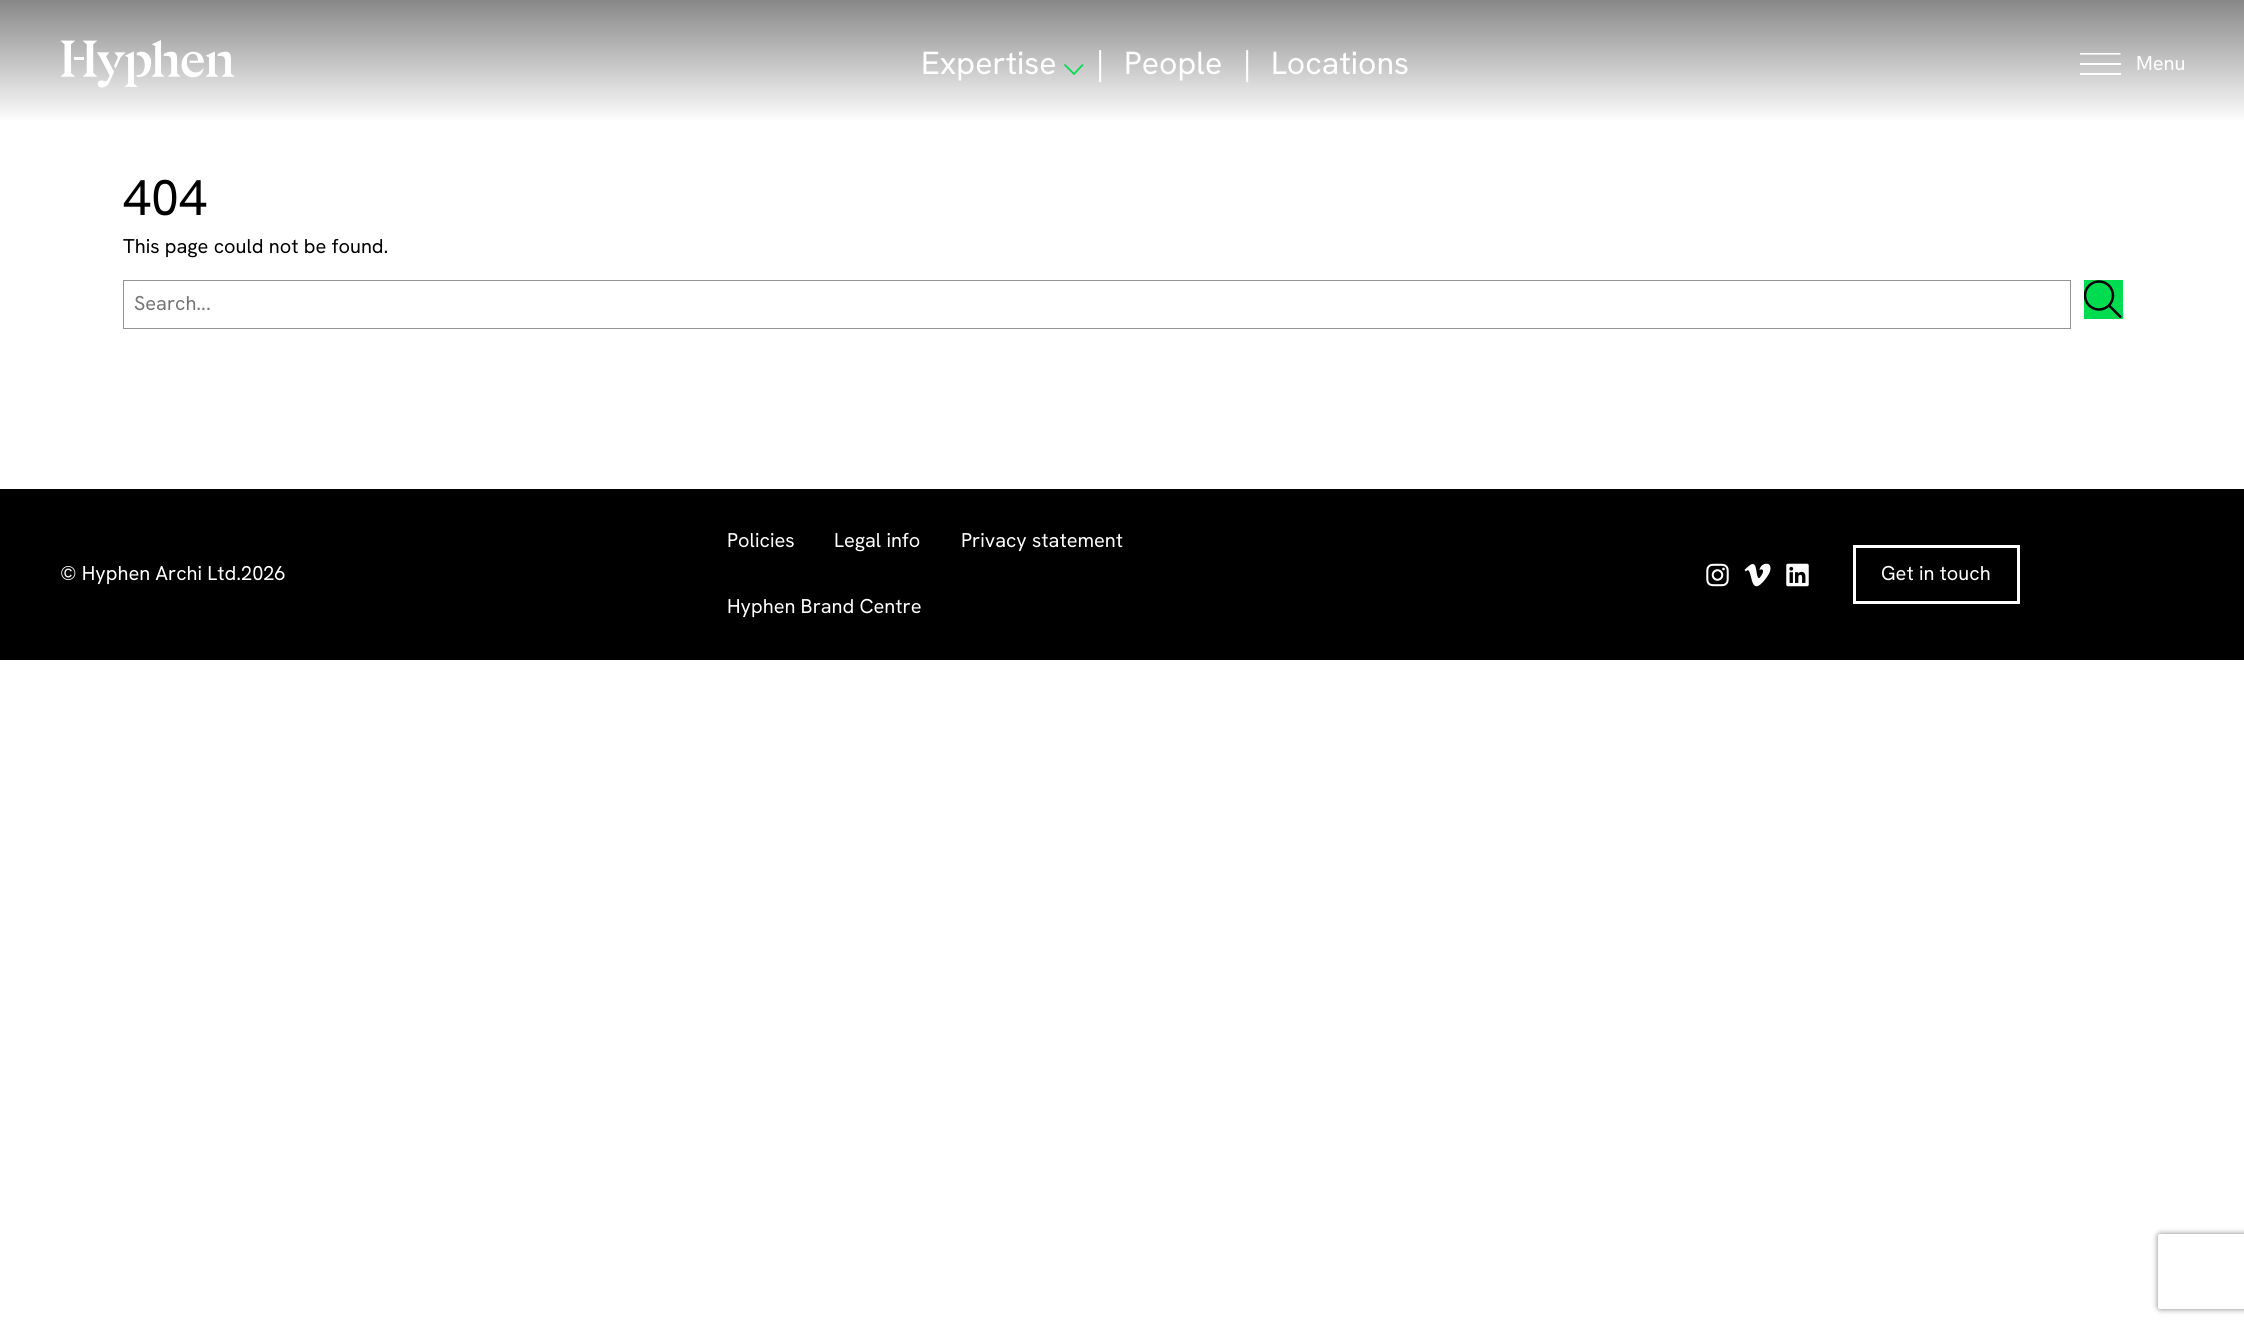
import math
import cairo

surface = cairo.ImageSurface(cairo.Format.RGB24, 2244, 1326)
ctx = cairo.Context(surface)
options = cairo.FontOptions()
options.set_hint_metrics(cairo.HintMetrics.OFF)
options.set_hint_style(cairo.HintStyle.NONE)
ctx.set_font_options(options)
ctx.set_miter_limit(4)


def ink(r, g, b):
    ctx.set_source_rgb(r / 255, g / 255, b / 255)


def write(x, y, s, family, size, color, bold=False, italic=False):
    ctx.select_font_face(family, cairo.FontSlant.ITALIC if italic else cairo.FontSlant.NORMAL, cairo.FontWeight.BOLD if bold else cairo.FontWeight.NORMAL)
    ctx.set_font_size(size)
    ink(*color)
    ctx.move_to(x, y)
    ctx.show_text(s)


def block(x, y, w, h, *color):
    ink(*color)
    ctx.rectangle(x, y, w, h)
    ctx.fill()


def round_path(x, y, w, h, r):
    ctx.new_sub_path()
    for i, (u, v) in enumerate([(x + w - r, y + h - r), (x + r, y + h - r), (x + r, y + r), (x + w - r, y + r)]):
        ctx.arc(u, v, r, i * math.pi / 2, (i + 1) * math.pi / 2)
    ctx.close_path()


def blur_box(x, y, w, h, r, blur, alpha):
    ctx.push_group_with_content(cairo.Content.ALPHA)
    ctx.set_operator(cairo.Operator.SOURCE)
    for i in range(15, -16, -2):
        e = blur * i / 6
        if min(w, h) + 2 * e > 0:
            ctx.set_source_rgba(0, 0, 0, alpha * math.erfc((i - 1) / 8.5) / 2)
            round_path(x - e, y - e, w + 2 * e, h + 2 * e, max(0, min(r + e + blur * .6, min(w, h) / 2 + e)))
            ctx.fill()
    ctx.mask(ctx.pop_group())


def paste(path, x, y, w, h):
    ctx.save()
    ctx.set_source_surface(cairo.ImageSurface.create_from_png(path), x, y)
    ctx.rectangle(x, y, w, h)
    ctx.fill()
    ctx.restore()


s1 = dict(family="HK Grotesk", size=32, color=(255, 255, 255))
s2 = dict(family="HK Grotesk", size=20, color=(255, 255, 255))
s3 = dict(family="HK Grotesk", size=50, color=(0, 0, 0))
s4 = dict(family="HK Grotesk", size=20, color=(0, 0, 0))
s5 = dict(family="HK Grotesk", size=20, color=(117, 117, 117))

ink(255, 255, 255)
ctx.paint()
gradient = cairo.LinearGradient(1123, 128, 1123, 0)
gradient.add_color_stop_rgba(0.04, 1, 1, 1, 1)
gradient.add_color_stop_rgba(1, 0.533, 0.533, 0.533, 1)
ctx.set_source(gradient)
ctx.rectangle(0, 0, 2244, 120)
ctx.fill()
paste("pic1.png", 60, 40, 175, 48)
write(921, 74, "Expertise", **s1)
ctx.new_path()
ctx.move_to(1083, 64.5)
ctx.line_to(1074, 74)
ctx.line_to(1064.5, 64.5)
ink(0, 220, 80)
ctx.set_line_width(1.7)
ctx.stroke()
write(1096, 74, "|", **s1)
write(1124, 74, "People", **s1)
write(1243, 74, "|", **s1)
write(1271, 74, "Locations", **s1)
ctx.save()
ctx.rectangle(2080, 53, 41, 22)
ctx.clip()
ctx.new_path()
ctx.move_to(2080, 53.5)
ctx.line_to(2120.5, 53.5)
ctx.set_line_width(2.2)
ctx.stroke()
ctx.restore()
block(2080, 63, 41, 2, 255, 255, 255)
block(2080, 73, 41, 2, 255, 255, 255)
write(2136, 70, "Menu", **s2)
write(123, 215, "404", **s3)
write(123, 253, "This page could not be found.", **s4)
ctx.rectangle(123.5, 280.5, 1947, 48)
ink(148, 148, 148)
ctx.set_line_width(1)
ctx.stroke()
write(134, 310, "Search...", **s5)
block(2084, 280, 39, 39, 0, 220, 80)
ctx.save()
ctx.rectangle(2084, 280, 39, 39)
ctx.clip()
ctx.arc(2099, 295.5, 14, 0, 2 * math.pi)
ink(0, 0, 0)
ctx.set_line_width(2.5)
ctx.stroke()
ctx.restore()
ctx.new_path()
ctx.move_to(2109, 305.5)
ctx.line_to(2121, 317.5)
ink(0, 0, 0)
ctx.set_line_width(2.5)
ctx.stroke()
block(0, 489, 2244, 171, 0, 0, 0)
write(60, 580, "© Hyphen Archi Ltd.2026", **s2)
write(727, 547, "Policies", **s2)
write(834, 547, "Legal info", **s2)
write(961, 547, "Privacy statement", **s2)
write(727, 613, "Hyphen Brand Centre", **s2)
paste("pic2.png", 1706, 563, 23, 24)
paste("pic3.png", 1744, 563, 27, 24)
paste("pic4.png", 1786, 563, 23, 24)
ctx.rectangle(1854.5, 546.5, 164, 56)
ctx.set_line_width(3)
ctx.stroke()
write(1881, 580, "Get in touch", **s2)
ctx.save()
ctx.set_fill_rule(cairo.FillRule.EVEN_ODD)
ctx.new_path()
ctx.move_to(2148, 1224)
ctx.line_to(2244, 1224)
ctx.line_to(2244, 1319)
ctx.line_to(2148, 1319)
ctx.close_path()
ctx.move_to(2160.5, 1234)
ctx.line_to(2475.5, 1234)
ctx.curve_to(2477, 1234, 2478, 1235, 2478, 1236.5)
ctx.line_to(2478, 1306.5)
ctx.curve_to(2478, 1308, 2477, 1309, 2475.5, 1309)
ctx.line_to(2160.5, 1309)
ctx.curve_to(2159, 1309, 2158, 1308, 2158, 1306.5)
ctx.line_to(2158, 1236.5)
ctx.curve_to(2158, 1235, 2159, 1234, 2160.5, 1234)
ctx.close_path()
ctx.clip()
ink(128, 128, 128)
blur_box(2158, 1234, 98, 75, 2.5, 3, 1)
ctx.restore()
surface.write_to_png("screenshot.png")
